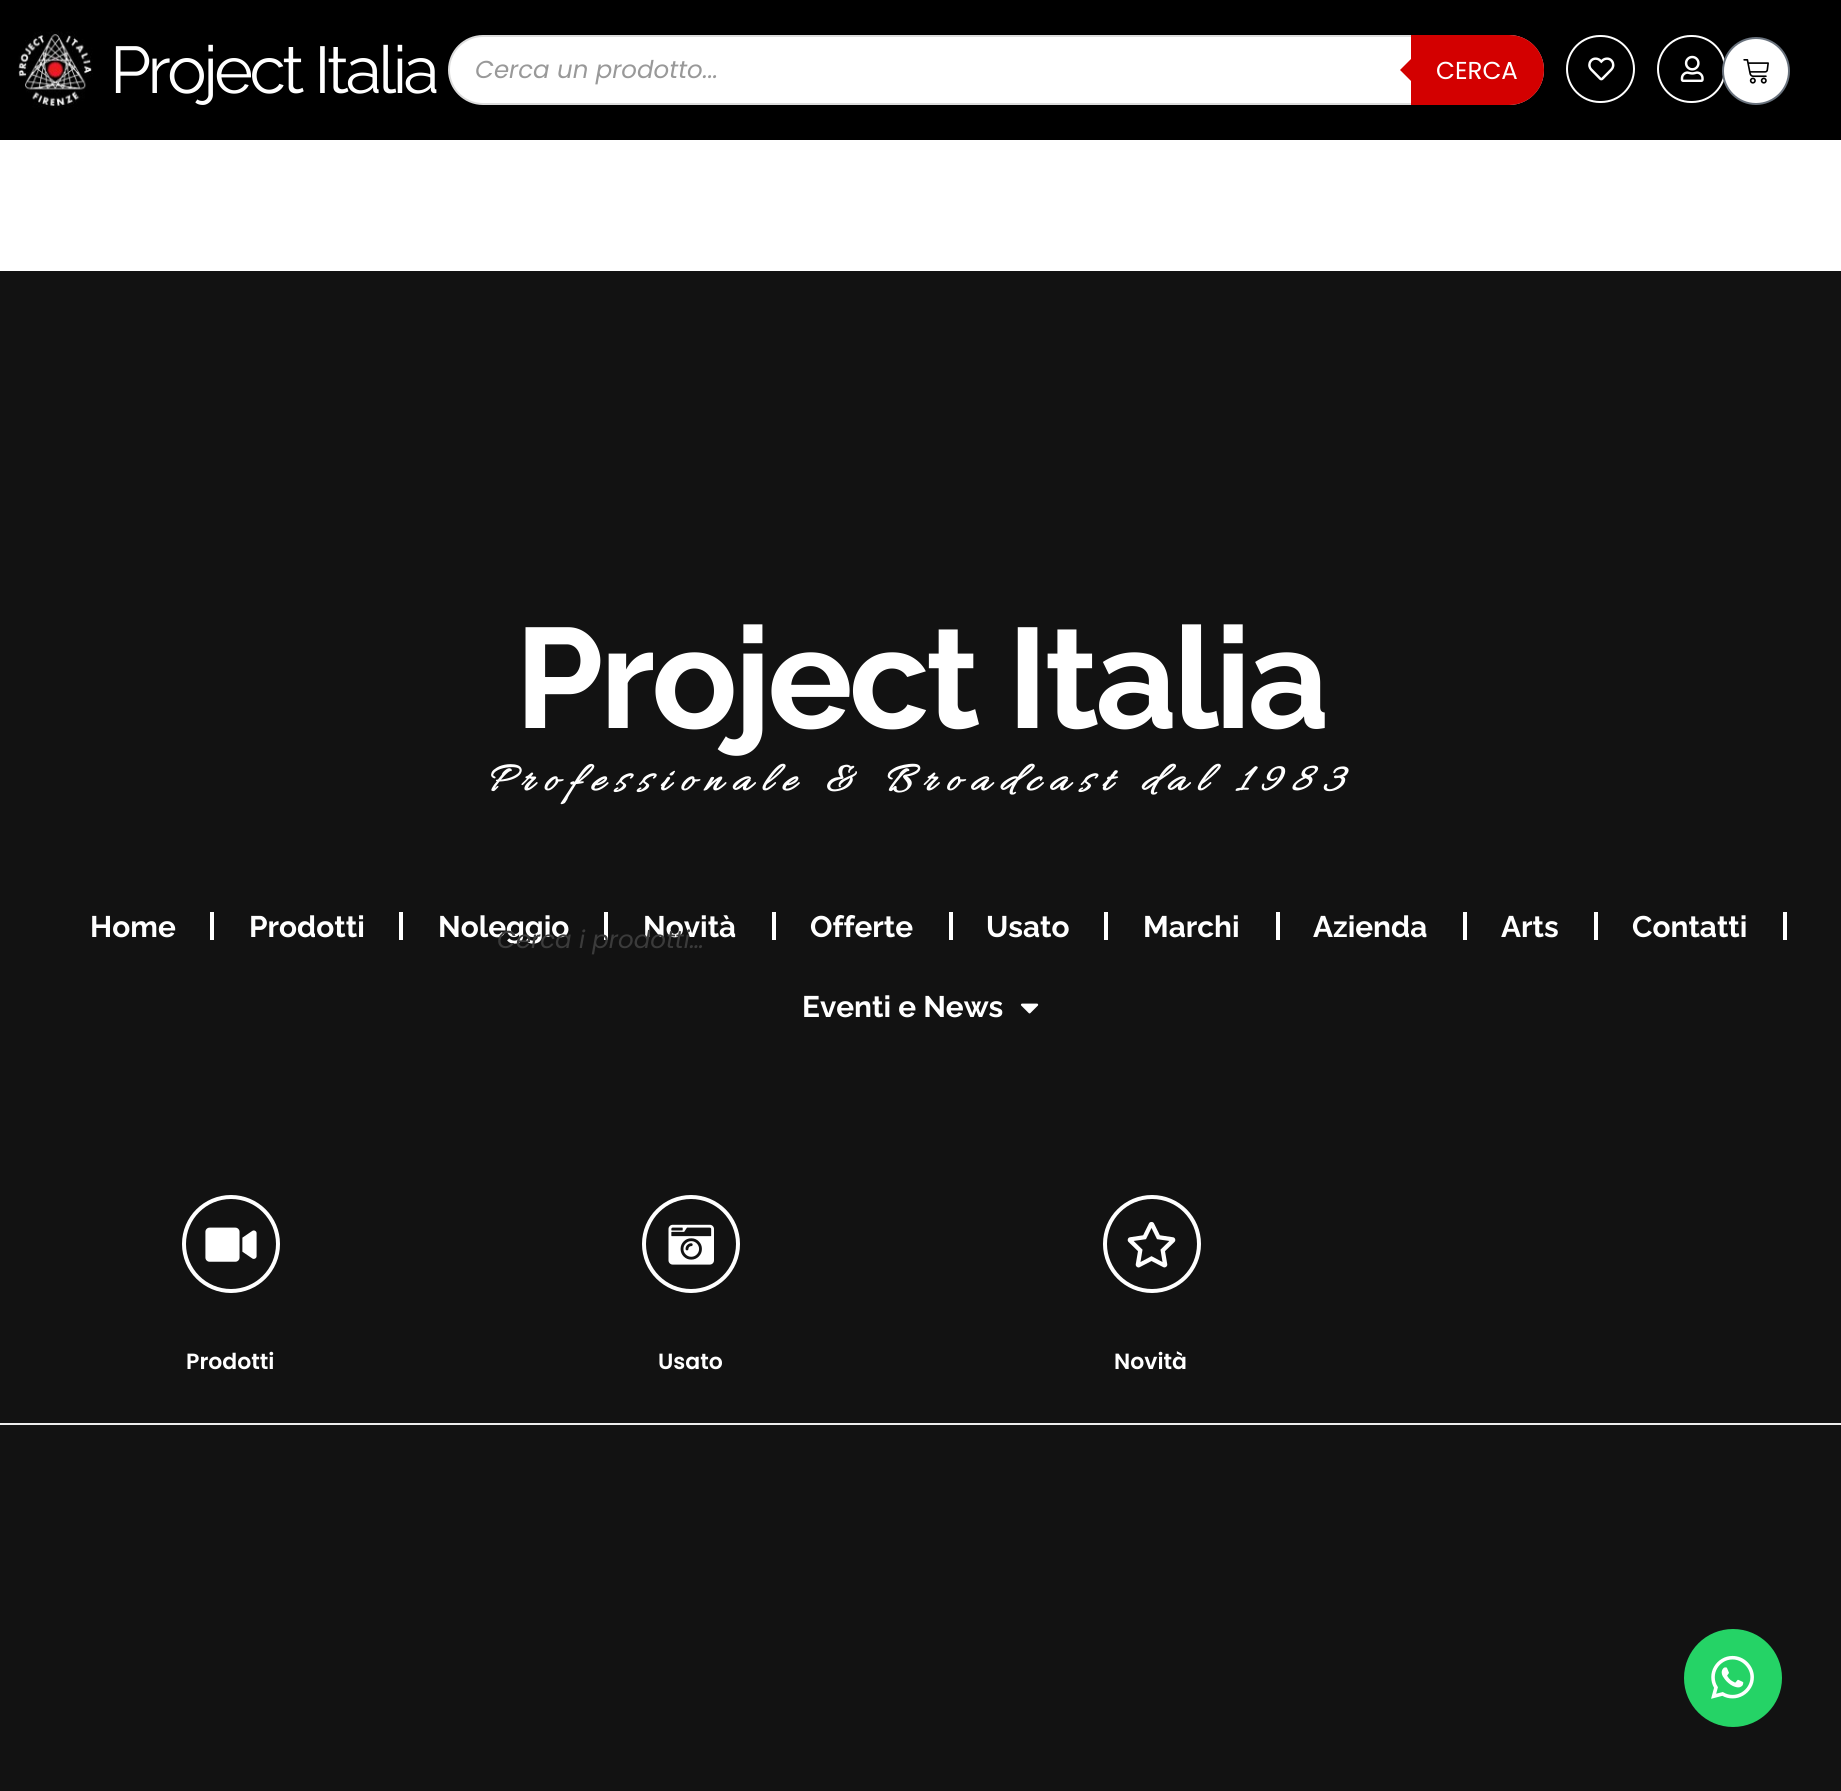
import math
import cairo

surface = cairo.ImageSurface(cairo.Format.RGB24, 1841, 1791)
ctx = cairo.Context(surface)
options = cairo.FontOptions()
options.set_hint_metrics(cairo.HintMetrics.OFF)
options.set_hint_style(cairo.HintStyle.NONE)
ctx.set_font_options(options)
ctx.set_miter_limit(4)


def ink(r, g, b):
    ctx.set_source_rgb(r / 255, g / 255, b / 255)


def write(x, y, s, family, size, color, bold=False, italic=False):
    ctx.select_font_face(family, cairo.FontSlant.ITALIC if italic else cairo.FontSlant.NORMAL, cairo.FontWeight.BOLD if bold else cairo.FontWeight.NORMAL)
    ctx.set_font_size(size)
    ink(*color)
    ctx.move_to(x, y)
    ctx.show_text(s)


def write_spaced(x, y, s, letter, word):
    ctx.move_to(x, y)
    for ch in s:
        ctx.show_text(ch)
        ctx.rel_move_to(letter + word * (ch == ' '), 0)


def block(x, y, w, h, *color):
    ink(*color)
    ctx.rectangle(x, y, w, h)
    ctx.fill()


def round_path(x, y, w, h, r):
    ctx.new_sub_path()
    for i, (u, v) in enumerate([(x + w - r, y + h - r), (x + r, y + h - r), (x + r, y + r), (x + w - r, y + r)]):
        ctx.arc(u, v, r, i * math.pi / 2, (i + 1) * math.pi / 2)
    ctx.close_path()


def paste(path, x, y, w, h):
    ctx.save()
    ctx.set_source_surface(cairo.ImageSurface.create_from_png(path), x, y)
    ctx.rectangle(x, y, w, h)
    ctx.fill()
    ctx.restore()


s1 = dict(family="Poppins", size=24.5, color=(153, 153, 153), italic=True)
s2 = dict(family="Poppins", size=24.5, color=(255, 255, 255))
s3 = dict(family="Raleway", size=29.75, color=(255, 255, 255), bold=True)
s4 = dict(family="Poppins SemiBold", size=22, color=(255, 255, 255))
s5 = dict(family="Poppins", size=24.5, color=(59, 59, 59), italic=True)

ink(255, 255, 255)
ctx.paint()
block(0, 0, 1841, 140, 0, 0, 0)
paste("pic1.png", 18, 31, 75, 77)
ctx.select_font_face("Raleway")
ctx.set_font_size(66)
ink(255, 255, 255)
write_spaced(110, 93, "Project Italia", -3.5, 0)
round_path(449, 36, 1094, 68, 34)
ctx.fill_preserve()
ink(221, 221, 221)
ctx.stroke()
write(475, 78, "Cerca un prodotto...", **s1)
ink(211, 0, 0)
ctx.new_path()
ctx.move_to(1411, 35)
ctx.line_to(1509, 35)
ctx.curve_to(1528.5, 35, 1544, 50.5, 1544, 70)
ctx.curve_to(1544, 89.5, 1528.5, 105, 1509, 105)
ctx.line_to(1411, 105)
ctx.close_path()
ctx.fill()
ctx.new_path()
ctx.move_to(1414, 56)
ctx.line_to(1414, 84)
ctx.line_to(1400, 70)
ctx.close_path()
ctx.fill()
write(1436, 79, "CERCA", **s2)
round_path(1567, 36, 67, 66, 33)
ctx.stroke()
paste("pic2.png", 1588, 57, 27, 24)
round_path(1658, 36, 67, 66, 33)
ctx.stroke()
paste("pic3.png", 1680, 55, 24, 27)
ctx.arc(1756, 71, 33, 0, 2 * math.pi)
ctx.fill_preserve()
ink(105, 114, 125)
ctx.stroke()
paste("pic4.png", 1743, 59, 26, 25)
block(0, 271, 1841, 1520, 18, 18, 18)
ctx.select_font_face("Raleway", cairo.FontSlant.NORMAL, cairo.FontWeight.BOLD)
ctx.set_font_size(142)
ink(255, 255, 255)
write_spaced(515, 728, "Project Italia", -3.5, 0)
ctx.select_font_face("Allura", cairo.FontSlant.ITALIC, cairo.FontWeight.BOLD)
ctx.set_font_size(41.65)
write_spaced(486, 790, "Professionale & Broadcast dal 1983", 10.5, 0)
write(90, 937, "Home", **s3)
block(210, 912, 4, 28, 255, 255, 255)
write(249, 937, "Prodotti", **s3)
block(399, 912, 4, 28, 255, 255, 255)
write(438, 937, "Noleggio", **s3)
block(604, 912, 4, 28, 255, 255, 255)
write(643, 937, "Novità", **s3)
block(772, 912, 4, 28, 255, 255, 255)
write(810, 937, "Offerte", **s3)
block(949, 912, 4, 28, 255, 255, 255)
write(986, 937, "Usato", **s3)
block(1104, 912, 4, 28, 255, 255, 255)
write(1143, 937, "Marchi", **s3)
block(1276, 912, 4, 28, 255, 255, 255)
write(1313, 937, "Azienda", **s3)
block(1463, 912, 4, 28, 255, 255, 255)
write(1501, 937, "Arts", **s3)
block(1594, 912, 4, 28, 255, 255, 255)
write(1632, 937, "Contatti", **s3)
block(1783, 912, 4, 28, 255, 255, 255)
write(802, 1017, "Eventi e News", **s3)
paste("pic5.png", 1020, 1003, 19, 11)
block(0, 1423, 1841, 2, 238, 238, 238)
ctx.arc(231, 1244, 47, 0, 2 * math.pi)
ink(255, 255, 255)
ctx.set_line_width(4)
ctx.stroke()
paste("pic6.png", 205, 1227, 52, 35)
write(186, 1369, "Prodotti", **s4)
ctx.new_path()
ctx.arc(691, 1244, 47, 0, 2 * math.pi)
ctx.stroke()
paste("pic7.png", 668, 1224, 46, 41)
write(658, 1369, "Usato", **s4)
ctx.new_path()
ctx.arc(1152, 1244, 47, 0, 2 * math.pi)
ctx.stroke()
paste("pic8.png", 1127, 1221, 49, 47)
write(1114, 1369, "Novità", **s4)
ink(37, 211, 102)
ctx.new_path()
ctx.arc(1733, 1678, 49, 0, 2 * math.pi)
ctx.fill()
paste("pic9.png", 1711, 1655, 43, 44)
write(497, 948, "Cerca i prodotti…", **s5)
surface.write_to_png("screenshot.png")
